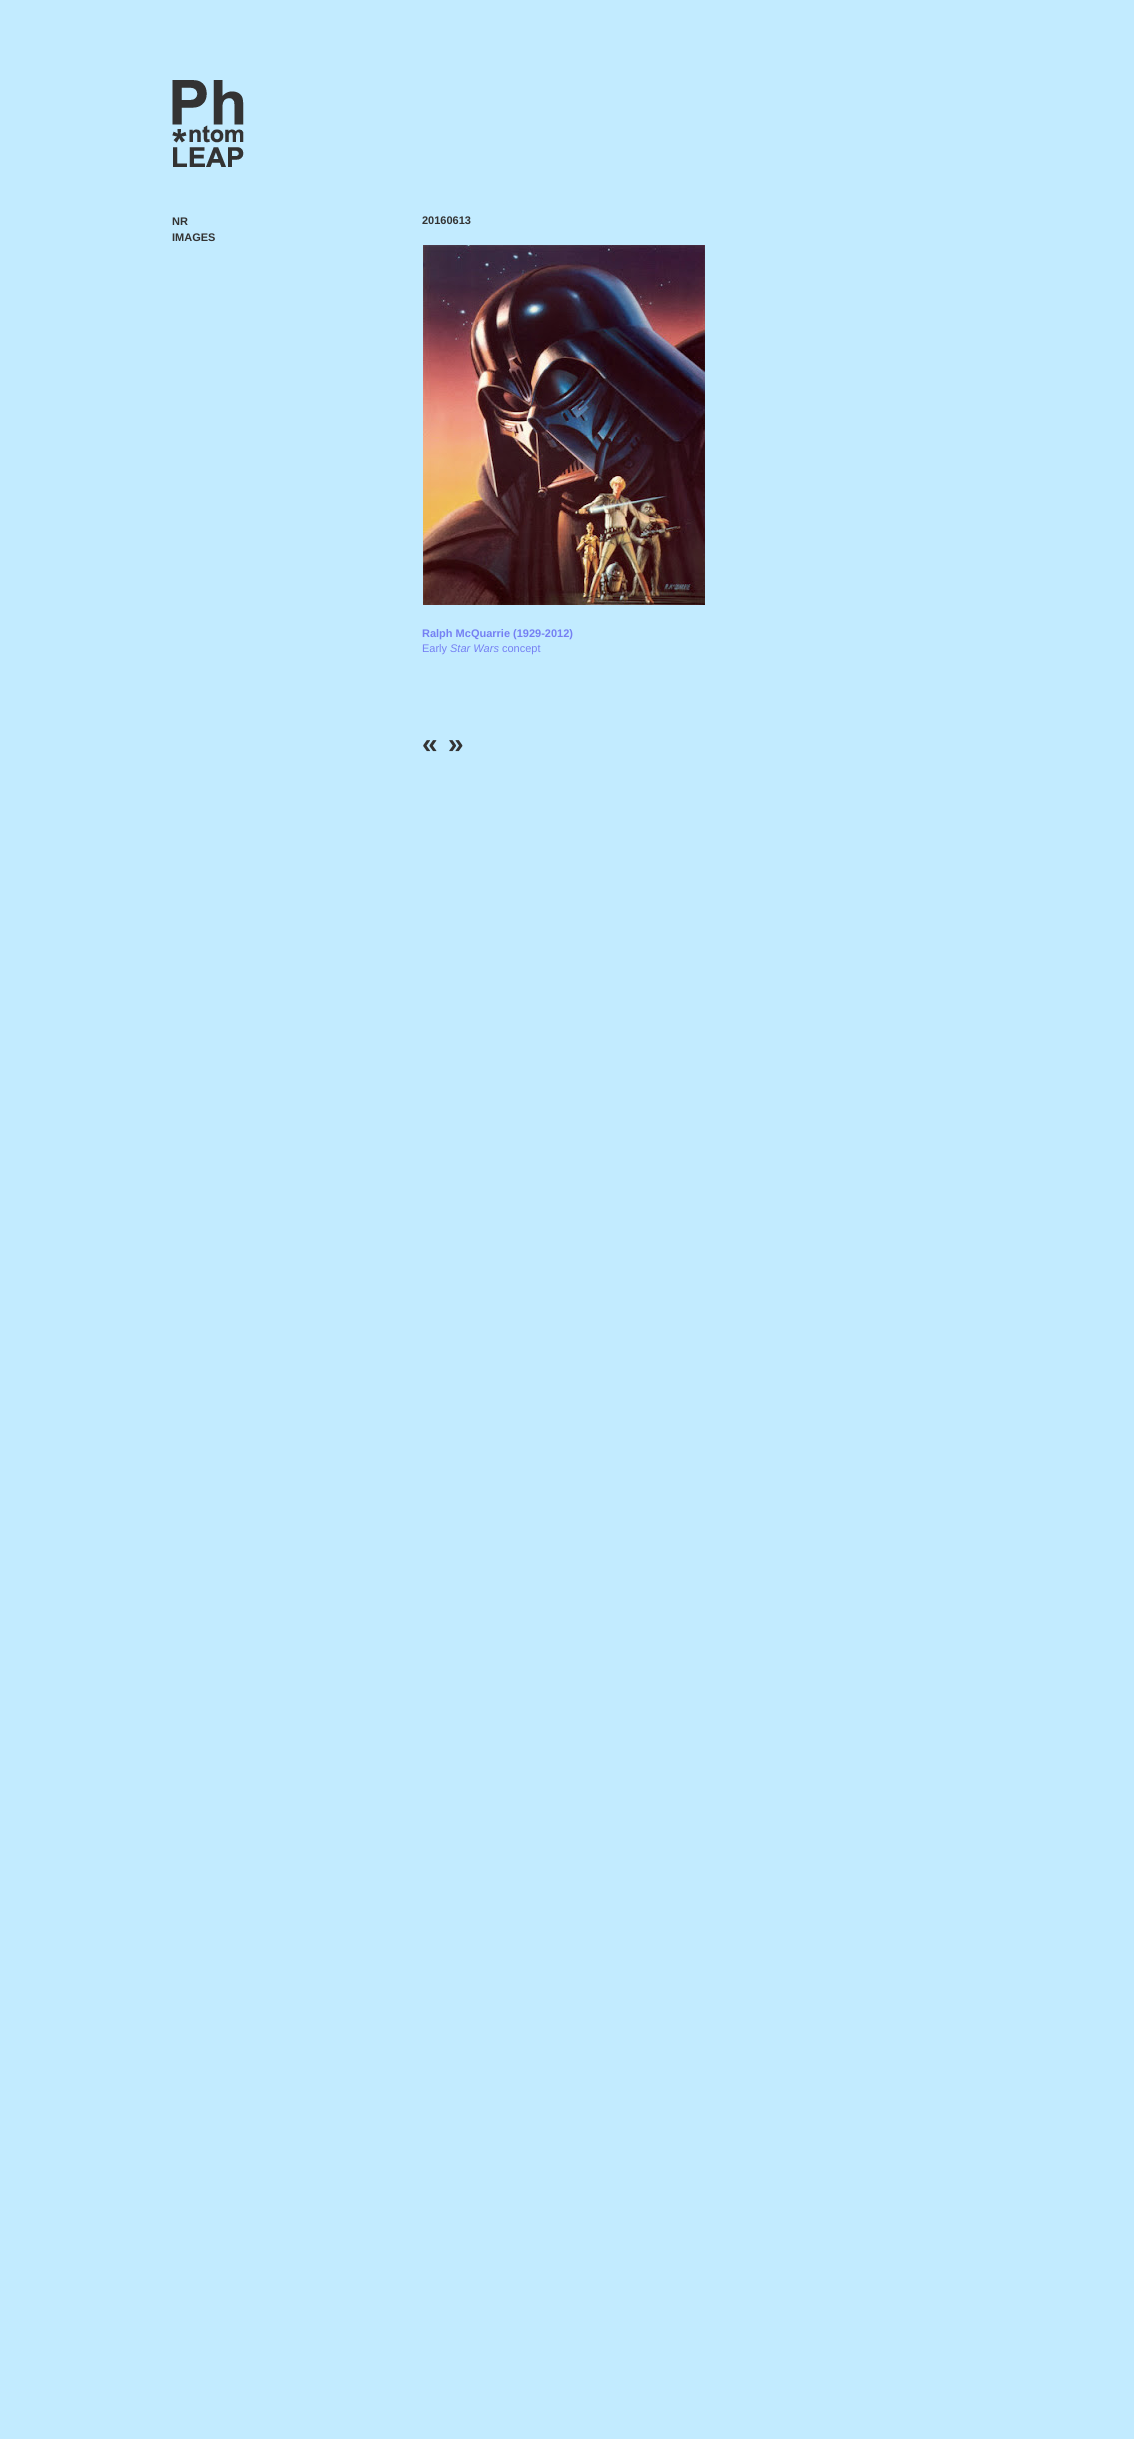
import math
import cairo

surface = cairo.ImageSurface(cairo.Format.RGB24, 1134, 2439)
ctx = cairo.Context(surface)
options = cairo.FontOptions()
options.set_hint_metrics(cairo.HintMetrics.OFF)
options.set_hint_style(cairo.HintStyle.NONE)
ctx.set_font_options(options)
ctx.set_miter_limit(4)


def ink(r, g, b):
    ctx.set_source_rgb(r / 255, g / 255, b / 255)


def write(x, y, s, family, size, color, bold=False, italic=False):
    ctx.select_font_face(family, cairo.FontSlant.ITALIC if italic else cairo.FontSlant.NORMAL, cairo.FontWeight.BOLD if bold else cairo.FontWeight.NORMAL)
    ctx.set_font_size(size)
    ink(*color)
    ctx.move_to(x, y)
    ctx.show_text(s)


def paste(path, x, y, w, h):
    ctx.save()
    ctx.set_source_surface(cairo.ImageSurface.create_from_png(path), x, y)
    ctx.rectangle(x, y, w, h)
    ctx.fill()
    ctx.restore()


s1 = dict(family="Liberation Sans", size=11, color=(51, 51, 51), bold=True)
s2 = dict(family="Liberation Sans", size=11, color=(117, 128, 243), bold=True)
s3 = dict(family="Liberation Sans", size=11, color=(117, 128, 243))
s4 = dict(family="Liberation Sans", size=11, color=(117, 128, 243), italic=True)
s5 = dict(family="Liberation Sans", size=28, color=(51, 51, 51), bold=True)

ink(194, 235, 255)
ctx.paint()
paste("pic1.png", 172, 80, 72, 87)
write(172, 225, "NR", **s1)
write(172, 241, "IMAGES", **s1)
write(422, 224, "20160613", **s1)
paste("pic2.png", 423, 245, 282, 360)
write(422, 637, "Ralph McQuarrie (1929-2012)", **s2)
write(422, 652, "Early", **s3)
write(450, 652, "Star Wars", **s4)
write(502, 652, "concept", **s3)
write(422, 753, "«", **s5)
write(448, 753, "»", **s5)
surface.write_to_png("screenshot.png")
